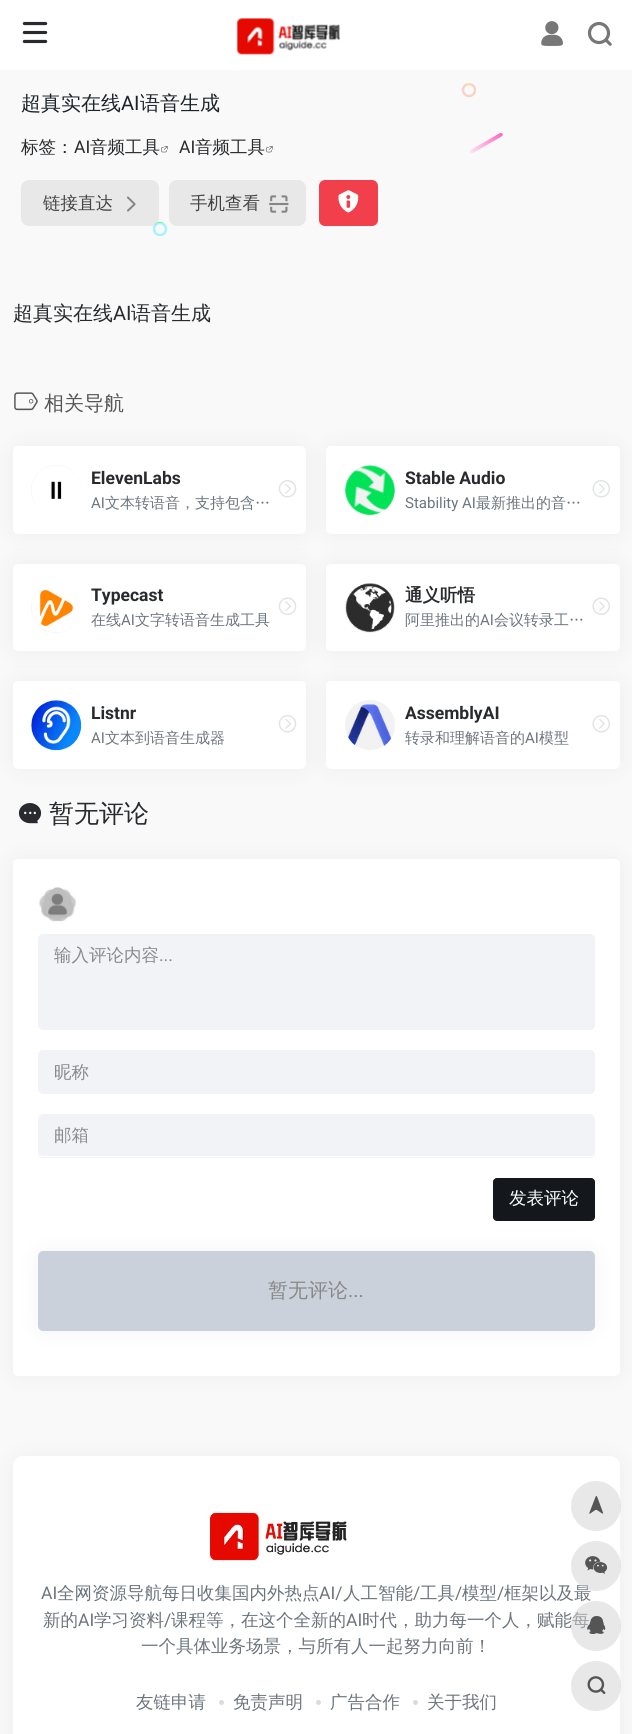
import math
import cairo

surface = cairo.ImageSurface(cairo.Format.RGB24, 632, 1734)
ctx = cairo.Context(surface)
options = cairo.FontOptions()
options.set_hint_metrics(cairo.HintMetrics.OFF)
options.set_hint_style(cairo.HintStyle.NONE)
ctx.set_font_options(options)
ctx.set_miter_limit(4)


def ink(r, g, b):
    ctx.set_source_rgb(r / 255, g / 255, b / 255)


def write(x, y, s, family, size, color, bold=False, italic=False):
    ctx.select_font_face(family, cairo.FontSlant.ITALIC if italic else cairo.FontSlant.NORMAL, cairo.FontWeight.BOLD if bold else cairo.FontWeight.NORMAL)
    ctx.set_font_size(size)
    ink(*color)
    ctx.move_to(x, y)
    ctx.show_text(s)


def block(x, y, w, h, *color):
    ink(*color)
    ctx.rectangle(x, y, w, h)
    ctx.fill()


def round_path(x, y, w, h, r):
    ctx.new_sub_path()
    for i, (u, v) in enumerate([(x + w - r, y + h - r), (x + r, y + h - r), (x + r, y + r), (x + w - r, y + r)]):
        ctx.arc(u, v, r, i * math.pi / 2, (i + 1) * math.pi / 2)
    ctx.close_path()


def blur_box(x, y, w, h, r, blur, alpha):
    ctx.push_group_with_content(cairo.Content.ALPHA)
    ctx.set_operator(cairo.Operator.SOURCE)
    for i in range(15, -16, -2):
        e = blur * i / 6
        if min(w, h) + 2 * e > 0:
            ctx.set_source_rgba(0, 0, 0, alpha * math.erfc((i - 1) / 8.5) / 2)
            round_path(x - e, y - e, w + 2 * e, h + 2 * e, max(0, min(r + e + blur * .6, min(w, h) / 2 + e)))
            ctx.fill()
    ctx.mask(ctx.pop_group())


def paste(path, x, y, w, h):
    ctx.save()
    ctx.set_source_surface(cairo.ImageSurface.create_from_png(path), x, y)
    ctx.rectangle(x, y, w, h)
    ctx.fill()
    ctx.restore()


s1 = dict(family="WenQuanYi Zen Hei Medium", size=20, color=(29, 35, 43))
s2 = dict(family="Roboto", size=20, color=(29, 35, 43))
s3 = dict(family="WenQuanYi Zen Hei Medium", size=17.5, color=(40, 42, 45))
s4 = dict(family="Roboto", size=17.5, color=(40, 42, 45))
s5 = dict(family="WenQuanYi Zen Hei Medium", size=17.5, color=(68, 68, 68))
s6 = dict(family="WenQuanYi Zen Hei Medium", size=20, color=(40, 42, 45))
s7 = dict(family="Roboto", size=20, color=(40, 42, 45))
s8 = dict(family="WenQuanYi Zen Hei Medium", size=20, color=(85, 85, 85))
s9 = dict(family="Roboto", size=17.5, color=(40, 42, 45), bold=True)
s10 = dict(family="Roboto", size=15, color=(108, 117, 125))
s11 = dict(family="WenQuanYi Zen Hei Medium", size=15, color=(108, 117, 125))
s12 = dict(family="WenQuanYi Zen Hei", size=17.5, color=(40, 42, 45), bold=True)
s13 = dict(family="WenQuanYi Zen Hei Medium", size=25, color=(40, 42, 45))
s14 = dict(family="WenQuanYi Zen Hei Medium", size=17.5, color=(136, 138, 143))
s15 = dict(family="Roboto", size=17.5, color=(136, 138, 143))
s16 = dict(family="WenQuanYi Zen Hei Medium", size=17.5, color=(255, 255, 255))
s17 = dict(family="WenQuanYi Zen Hei Medium", size=20, color=(136, 136, 136))
s18 = dict(family="Roboto", size=20, color=(136, 136, 136))
s19 = dict(family="Roboto", size=17.5, color=(108, 117, 125))
s20 = dict(family="WenQuanYi Zen Hei Medium", size=17.5, color=(108, 117, 125))

ink(249, 249, 249)
ctx.paint()
block(0, 0, 632, 70, 255, 255, 255)
paste("pic1.png", 22, 21, 26, 23)
paste("pic2.png", 236, 18, 105, 37)
paste("pic3.png", 541, 21, 22, 25)
paste("pic4.png", 587, 21, 25, 25)
write(21, 110, "超真实在线", **s1)
write(121, 110, "AI", **s2)
write(140, 110, "语音生成", **s1)
write(21, 153, "标签：", **s3)
write(74, 153, "AI", **s4)
write(90, 153, "音频工具", **s3)
paste("pic5.png", 161, 146, 7, 7)
write(179, 153, "AI", **s4)
write(195, 153, "音频工具", **s3)
paste("pic6.png", 266, 146, 7, 7)
ctx.save()
ctx.rectangle(153, 221, 15, 15)
ctx.clip()
ctx.arc(160, 229, 6, 0, 2 * math.pi)
gradient = cairo.LinearGradient(160, 223, 160, 235)
gradient.add_color_stop_rgba(0, 0.482, 0.992, 0.506, 1)
gradient.add_color_stop_rgba(0, 0.643, 0.953, 0.992, 1)
ctx.set_source(gradient)
ctx.set_line_width(2.5)
ctx.stroke()
ctx.restore()
ctx.set_source_rgba(0.541, 0.541, 0.541, 0.15)
round_path(21, 180, 138, 46, 8)
ctx.fill()
write(43, 209, "链接直达", **s5)
paste("pic7.png", 127, 196, 9, 16)
ink(232, 232, 232)
round_path(169, 180, 137, 46, 8)
ctx.fill()
write(190, 209, "手机查看", **s5)
paste("pic8.png", 269, 195, 20, 18)
ink(241, 64, 75)
round_path(319, 180, 59, 46, 6)
ctx.fill()
paste("pic9.png", 338, 190, 21, 23)
ctx.save()
ctx.rectangle(461, 83, 15, 15)
ctx.clip()
ctx.arc(469, 90, 6, 0, 2 * math.pi)
gradient = cairo.LinearGradient(469, 84, 469, 96)
gradient.add_color_stop_rgba(0, 0.988, 0.91, 0.627, 1)
gradient.add_color_stop_rgba(0, 0.973, 0.827, 0.792, 1)
ctx.set_source(gradient)
ctx.set_line_width(2.5)
ctx.stroke()
ctx.restore()
paste("pic10.png", 469, 133, 34, 21)
write(13, 320, "超真实在线", **s6)
write(113, 320, "AI", **s7)
write(131, 320, "语音生成", **s6)
paste("pic11.png", 14, 392, 24, 19)
write(44, 410, "相关导航", **s8)
ink(158, 158, 158)
blur_box(19, 453, 281, 75, 0, 12.5, 0.2)
ink(255, 255, 255)
round_path(13, 446, 293, 88, 5)
ctx.fill()
ink(242, 242, 242)
ctx.arc(56, 490, 25, 0, 2 * math.pi)
ctx.fill()
paste("pic12.png", 31, 465, 50, 50)
write(91, 484, "ElevenLabs", **s9)
write(91, 508, "AI", **s10)
write(105, 508, "文本转语音，支持包含…", **s11)
paste("pic13.png", 278, 480, 19, 18)
ink(158, 158, 158)
blur_box(333, 453, 281, 75, 0, 12.5, 0.2)
ink(255, 255, 255)
round_path(326, 446, 294, 88, 5)
ctx.fill()
ink(242, 242, 242)
ctx.arc(370, 490, 25, 0, 2 * math.pi)
ctx.fill()
paste("pic14.png", 345, 465, 50, 51)
write(405, 484, "Stable Audio", **s9)
write(405, 508, "Stability AI", **s10)
write(476, 508, "最新推出的音…", **s11)
paste("pic15.png", 592, 480, 18, 18)
ink(158, 158, 158)
blur_box(19, 570, 281, 75, 0, 12.5, 0.2)
ink(255, 255, 255)
round_path(13, 564, 293, 87, 5)
ctx.fill()
ink(242, 242, 242)
ctx.arc(56, 608, 25, 0, 2 * math.pi)
ctx.fill()
paste("pic16.png", 31, 583, 50, 50)
write(91, 601, "Typecast", **s9)
write(91, 625, "在线", **s11)
write(121, 625, "AI", **s10)
write(135, 625, "文字转语音生成工具", **s11)
paste("pic17.png", 278, 597, 19, 18)
ink(158, 158, 158)
blur_box(333, 570, 281, 75, 0, 12.5, 0.2)
ink(255, 255, 255)
round_path(326, 564, 294, 87, 5)
ctx.fill()
ink(242, 242, 242)
ctx.arc(370, 608, 25, 0, 2 * math.pi)
ctx.fill()
paste("pic18.png", 345, 583, 50, 49)
write(405, 601, "通义听悟", **s12)
write(405, 625, "阿里推出的", **s11)
write(480, 625, "AI", **s10)
write(494, 625, "会议转录工…", **s11)
paste("pic19.png", 592, 597, 18, 18)
ink(158, 158, 158)
blur_box(19, 688, 281, 75, 0, 12.5, 0.2)
ink(255, 255, 255)
round_path(13, 681, 293, 88, 5)
ctx.fill()
ink(242, 242, 242)
ctx.arc(56, 725, 25, 0, 2 * math.pi)
ctx.fill()
paste("pic20.png", 31, 700, 51, 51)
write(91, 719, "Listnr", **s9)
write(91, 743, "AI", **s10)
write(105, 743, "文本到语音生成器", **s11)
paste("pic13.png", 278, 715, 19, 18)
ink(158, 158, 158)
blur_box(333, 688, 281, 75, 0, 12.5, 0.2)
ink(255, 255, 255)
round_path(326, 681, 294, 88, 5)
ctx.fill()
ink(242, 242, 242)
ctx.arc(370, 725, 25, 0, 2 * math.pi)
ctx.fill()
paste("pic21.png", 348, 704, 44, 42)
write(405, 719, "AssemblyAI", **s9)
write(405, 743, "转录和理解语音的", **s11)
write(525, 743, "AI", **s10)
write(539, 743, "模型", **s11)
paste("pic15.png", 592, 715, 18, 18)
paste("pic22.png", 18, 803, 24, 21)
write(49, 822, "暂无评论", **s13)
ink(158, 158, 158)
blur_box(19, 865, 595, 505, 0, 12.5, 0.2)
ink(255, 255, 255)
round_path(13, 859, 607, 517, 5)
ctx.fill()
paste("pic23.png", 39, 887, 37, 35)
ink(241, 243, 246)
round_path(38.5, 934.5, 556, 95, 4.5)
ctx.fill_preserve()
ctx.set_line_width(1)
ctx.stroke()
write(54, 961, "输入评论内容", **s14)
write(159, 961, "...", **s15)
ink(241, 243, 246)
round_path(38.5, 1050.5, 556, 43, 4.5)
ctx.fill_preserve()
ctx.stroke()
write(54, 1078, "昵称", **s14)
ink(241, 243, 246)
round_path(39, 1115, 555, 41, 4)
ctx.fill()
round_path(38.5, 1114.5, 556, 43, 4.5)
ctx.stroke()
write(54, 1141, "邮箱", **s14)
ink(20, 23, 27)
round_path(493.5, 1178.5, 101, 42, 3.5)
ctx.fill_preserve()
ctx.stroke()
write(509, 1204, "发表评论", **s16)
ink(158, 158, 158)
blur_box(44, 1258, 545, 67, 0, 12.5, 0.2)
ink(219, 227, 238)
round_path(38, 1251, 557, 80, 5)
ctx.fill()
ink(202, 209, 218)
round_path(38, 1251, 557, 80, 6)
ctx.fill()
write(268, 1297, "暂无评论", **s17)
write(348, 1297, "...", **s18)
ink(158, 158, 158)
blur_box(19, 1463, 595, 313, 4, 12.5, 0.2)
ink(255, 255, 255)
round_path(13, 1456, 607, 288, 10)
ctx.fill()
paste("pic24.png", 210, 1512, 137, 49)
write(41, 1599, "AI", **s19)
write(57, 1599, "全网资源导航每日收集国内外热点", **s20)
write(319, 1599, "AI/", **s19)
write(343, 1599, "人工智能", **s20)
write(413, 1599, "/", **s19)
write(420, 1599, "工具", **s20)
write(455, 1599, "/", **s19)
write(462, 1599, "模型", **s20)
write(497, 1599, "/", **s19)
write(504, 1599, "框架以及最", **s20)
write(43, 1626, "新的", **s20)
write(78, 1626, "AI", **s19)
write(94, 1626, "学习资料", **s20)
write(164, 1626, "/", **s19)
write(171, 1626, "课程等，在这个全新的", **s20)
write(346, 1626, "AI", **s19)
write(362, 1626, "时代，助力每一个人，赋能每", **s20)
write(141, 1652, "一个具体业务场景，与所有人一起努力向前！", **s20)
write(136, 1708, "友链申请", **s20)
ink(219, 219, 219)
ctx.new_path()
ctx.arc(221.5, 1702.5, 2.5, 0, 2 * math.pi)
ctx.fill()
write(233, 1708, "免责声明", **s20)
ink(219, 219, 219)
ctx.new_path()
ctx.arc(318.5, 1702.5, 2.5, 0, 2 * math.pi)
ctx.fill()
write(330, 1708, "广告合作", **s20)
ink(219, 219, 219)
ctx.new_path()
ctx.arc(415.5, 1702.5, 2.5, 0, 2 * math.pi)
ctx.fill()
write(427, 1708, "关于我们", **s20)
ctx.set_source_rgba(0.824, 0.824, 0.824, 0.5)
ctx.new_path()
ctx.arc(596, 1506, 25, 0, 2 * math.pi)
ctx.fill()
paste("pic25.png", 589, 1496, 15, 18)
ctx.arc(596, 1566, 25, 0, 2 * math.pi)
ctx.fill()
paste("pic26.png", 585, 1556, 23, 18)
ctx.arc(596, 1626, 25, 0, 2 * math.pi)
ctx.fill()
paste("pic27.png", 587, 1616, 19, 18)
ctx.arc(596, 1686, 25, 0, 2 * math.pi)
ctx.fill()
paste("pic28.png", 587, 1676, 19, 18)
surface.write_to_png("screenshot.png")
